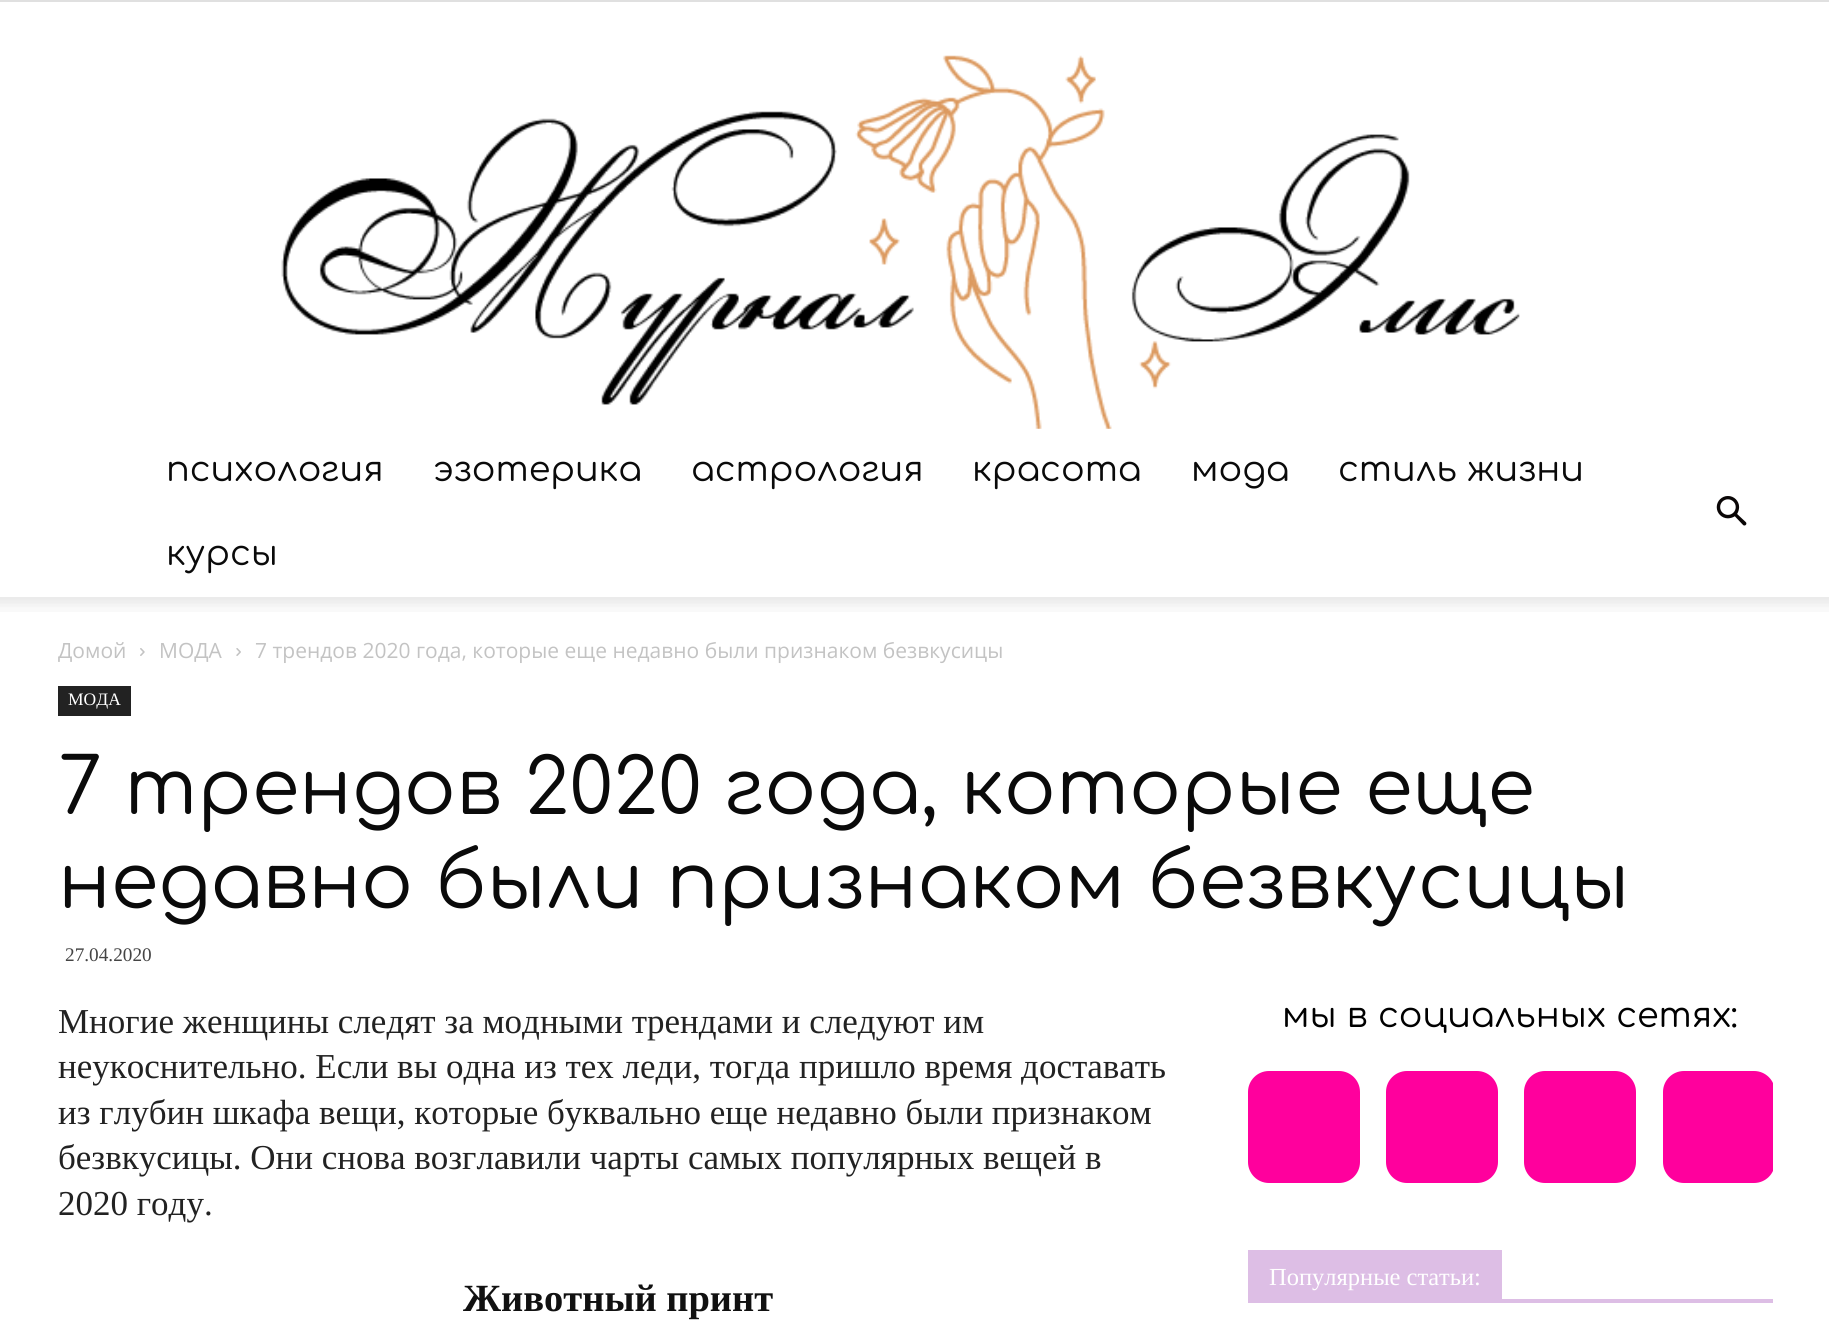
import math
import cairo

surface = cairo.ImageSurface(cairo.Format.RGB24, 1829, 1336)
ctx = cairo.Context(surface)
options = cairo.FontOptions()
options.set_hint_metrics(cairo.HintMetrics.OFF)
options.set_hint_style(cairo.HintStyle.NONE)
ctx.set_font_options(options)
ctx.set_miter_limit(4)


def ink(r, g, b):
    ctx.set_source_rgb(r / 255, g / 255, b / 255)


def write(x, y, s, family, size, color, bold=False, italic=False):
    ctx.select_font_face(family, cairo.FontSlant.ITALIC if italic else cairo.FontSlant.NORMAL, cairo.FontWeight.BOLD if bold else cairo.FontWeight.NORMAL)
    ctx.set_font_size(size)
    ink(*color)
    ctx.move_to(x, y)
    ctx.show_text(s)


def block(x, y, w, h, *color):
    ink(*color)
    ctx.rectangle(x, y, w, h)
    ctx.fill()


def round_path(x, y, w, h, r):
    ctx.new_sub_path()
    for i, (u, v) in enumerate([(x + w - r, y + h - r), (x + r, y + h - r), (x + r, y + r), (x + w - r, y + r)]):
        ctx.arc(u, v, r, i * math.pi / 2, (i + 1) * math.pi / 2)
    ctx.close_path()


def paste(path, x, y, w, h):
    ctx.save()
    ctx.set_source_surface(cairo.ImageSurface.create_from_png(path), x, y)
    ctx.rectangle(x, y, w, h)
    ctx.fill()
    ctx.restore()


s1 = dict(family="Comfortaa", size=35, color=(10, 10, 10))
s2 = dict(family="Open Sans", size=21, color=(195, 195, 195))
s3 = dict(family="Liberation Serif", size=17.5, color=(255, 255, 255))
s4 = dict(family="Comfortaa", size=77, color=(10, 10, 10))
s5 = dict(family="Liberation Serif", size=19.25, color=(68, 68, 68))
s6 = dict(family="Liberation Serif", size=35, color=(34, 34, 34))
s7 = dict(family="Liberation Serif", size=38.5, color=(17, 17, 17), bold=True)
s8 = dict(family="Comfortaa", size=35, color=(0, 0, 0))
s9 = dict(family="Liberation Serif", size=24.5, color=(255, 255, 255))

ink(255, 255, 255)
ctx.paint()
block(0, 0, 1829, 2, 224, 224, 224)
paste("pic1.png", 281, 55, 1239, 374)
write(166, 481, "психология", **s1)
write(433, 481, "эзотерика", **s1)
write(691, 481, "астрология", **s1)
write(972, 481, "красота", **s1)
write(1191, 481, "мода", **s1)
write(1338, 481, "стиль жизни", **s1)
write(166, 565, "курсы", **s1)
paste("pic2.png", 1716, 496, 31, 30)
paste("pic3.png", 0, 597, 1829, 15)
write(58, 658, "Домой", **s2)
paste("pic4.png", 140, 648, 5, 8)
write(159, 658, "МОДА", **s2)
paste("pic5.png", 236, 648, 5, 8)
write(255, 658, "7 трендов 2020 года, которые еще недавно были признаком безвкусицы", **s2)
block(58, 686, 73, 30, 34, 34, 34)
write(68, 705, "МОДА", **s3)
write(58, 814, "7 трендов 2020 года, которые еще", **s4)
write(58, 908, "недавно были признаком безвкусицы", **s4)
write(65, 961, "27.04.2020", **s5)
write(58, 1033, "Многие женщины следят за модными трендами и следуют им", **s6)
write(58, 1078, "неукоснительно. Если вы одна из тех леди, тогда пришло время доставать", **s6)
write(58, 1124, "из глубин шкафа вещи, которые буквально еще недавно были признаком", **s6)
write(58, 1169, "безвкусицы. Они снова возглавили чарты самых популярных вещей в", **s6)
write(58, 1215, "2020 году.", **s6)
write(463, 1311, "Животный принт", **s7)
write(1282, 1027, "мы в социальных сетях:", **s8)
ink(255, 0, 157)
round_path(1248, 1071, 112, 112, 21)
ctx.fill()
round_path(1386, 1071, 112, 112, 21)
ctx.fill()
round_path(1524, 1071, 112, 112, 21)
ctx.fill()
ctx.save()
ctx.rectangle(1248, 998, 525, 185)
ctx.clip()
round_path(1663, 1071, 112, 112, 21)
ctx.fill()
ctx.restore()
block(1248, 1299, 525, 4, 221, 190, 229)
block(1248, 1250, 254, 49, 221, 190, 229)
write(1269, 1285, "Популярные статьи:", **s9)
surface.write_to_png("screenshot.png")
